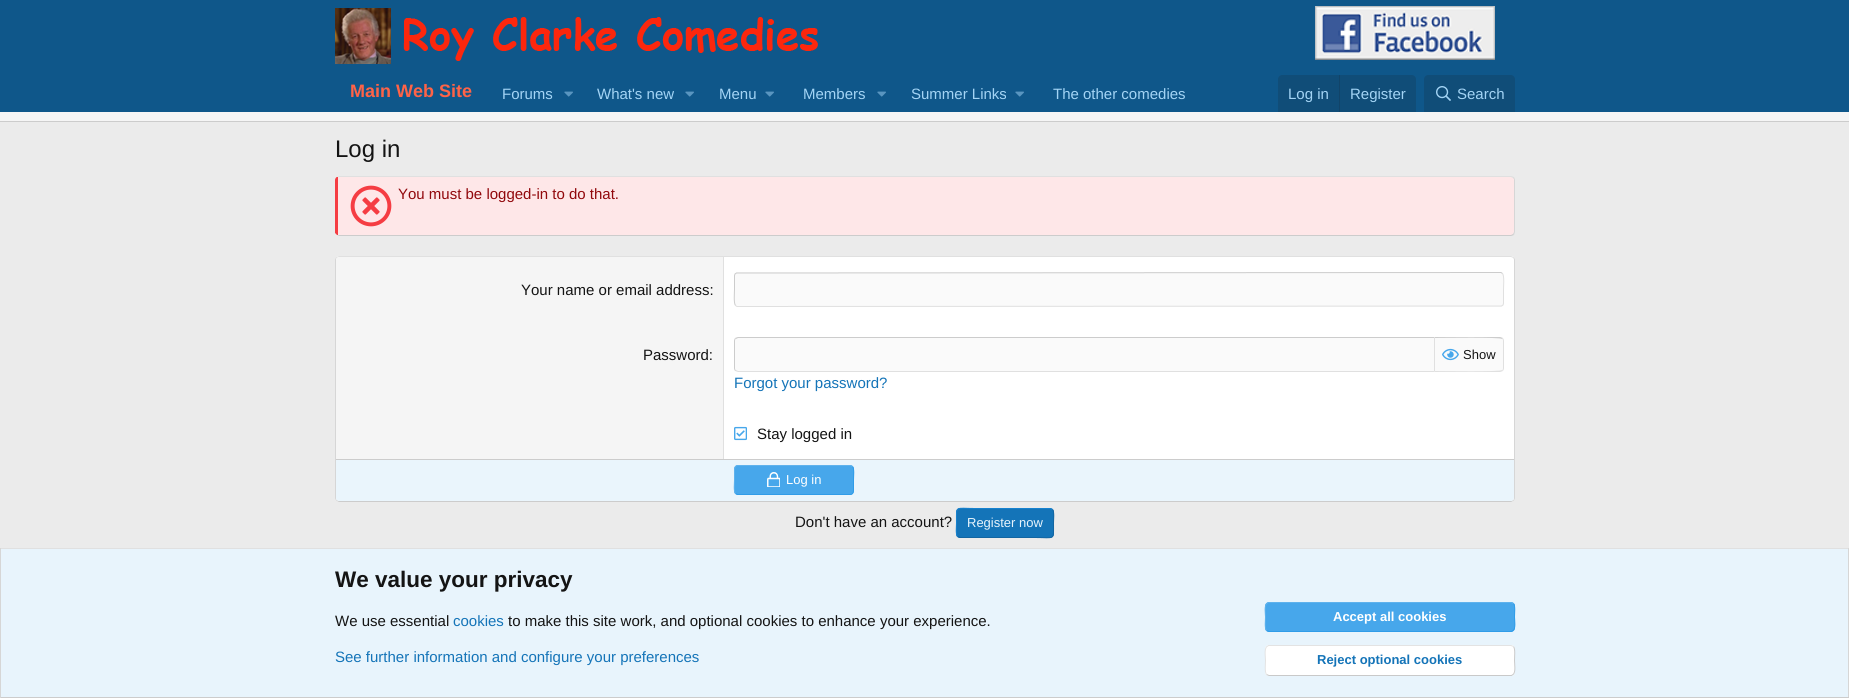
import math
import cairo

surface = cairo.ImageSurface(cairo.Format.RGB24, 1849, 698)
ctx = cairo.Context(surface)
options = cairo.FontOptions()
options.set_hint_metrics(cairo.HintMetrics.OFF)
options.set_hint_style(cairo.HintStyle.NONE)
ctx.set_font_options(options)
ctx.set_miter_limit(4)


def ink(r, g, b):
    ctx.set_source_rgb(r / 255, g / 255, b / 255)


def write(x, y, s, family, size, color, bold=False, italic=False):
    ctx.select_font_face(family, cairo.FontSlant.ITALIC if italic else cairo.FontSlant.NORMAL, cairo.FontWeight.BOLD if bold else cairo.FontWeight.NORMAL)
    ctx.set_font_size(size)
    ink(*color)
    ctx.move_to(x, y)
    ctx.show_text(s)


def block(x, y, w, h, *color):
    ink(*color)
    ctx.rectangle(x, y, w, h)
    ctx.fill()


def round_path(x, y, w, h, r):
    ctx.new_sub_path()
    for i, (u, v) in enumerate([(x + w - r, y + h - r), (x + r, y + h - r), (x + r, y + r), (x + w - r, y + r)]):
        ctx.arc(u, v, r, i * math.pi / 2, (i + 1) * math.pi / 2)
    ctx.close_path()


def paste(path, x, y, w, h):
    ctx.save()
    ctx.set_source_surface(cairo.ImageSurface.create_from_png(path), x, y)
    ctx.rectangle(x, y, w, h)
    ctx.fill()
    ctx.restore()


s1 = dict(family="Liberation Sans", size=18, color=(255, 99, 71), bold=True)
s2 = dict(family="Liberation Sans", size=15, color=(163, 212, 245))
s3 = dict(family="Liberation Sans", size=24, color=(20, 20, 20))
s4 = dict(family="Liberation Sans", size=15, color=(145, 8, 12))
s5 = dict(family="Liberation Sans", size=15, color=(20, 20, 20))
s6 = dict(family="Liberation Sans", size=13, color=(20, 20, 20))
s7 = dict(family="Liberation Sans", size=15, color=(20, 116, 184))
s8 = dict(family="Liberation Sans", size=13, color=(255, 255, 255))
s9 = dict(family="Liberation Sans", size=13, color=(232, 244, 252))
s10 = dict(family="Liberation Sans", size=22.5, color=(20, 20, 20), bold=True)
s11 = dict(family="Liberation Sans", size=13, color=(255, 255, 255), bold=True)
s12 = dict(family="Liberation Sans", size=13, color=(20, 116, 184), bold=True)

ink(235, 235, 235)
ctx.paint()
block(0, 0, 1849, 112, 15, 87, 138)
paste("pic1.png", 335, 8, 483, 56)
paste("pic2.png", 1315, 6, 180, 54)
write(350, 97, "Main Web Site", **s1)
write(502, 99, "Forums", **s2)
paste("pic3.png", 564, 91, 9, 6)
write(597, 99, "What's new", **s2)
paste("pic3.png", 685, 91, 9, 6)
write(719, 99, "Menu", **s2)
paste("pic3.png", 765, 91, 9, 6)
write(803, 99, "Members", **s2)
paste("pic3.png", 877, 91, 9, 6)
write(911, 99, "Summer Links", **s2)
paste("pic3.png", 1015, 91, 9, 6)
write(1053, 99, "The other comedies", **s2)
ink(16, 77, 120)
ctx.new_path()
ctx.move_to(1282, 75)
ctx.line_to(1412, 75)
ctx.curve_to(1414, 75, 1416, 77, 1416, 79)
ctx.line_to(1416, 112)
ctx.line_to(1278, 112)
ctx.line_to(1278, 79)
ctx.curve_to(1278, 77, 1280, 75, 1282, 75)
ctx.close_path()
ctx.fill()
write(1288, 99, "Log in", **s2)
block(1339, 75, 1, 37, 17, 68, 105)
write(1350, 99, "Register", **s2)
ink(16, 77, 120)
ctx.new_path()
ctx.move_to(1428, 75)
ctx.line_to(1511, 75)
ctx.curve_to(1513, 75, 1515, 77, 1515, 79)
ctx.line_to(1515, 112)
ctx.line_to(1424, 112)
ctx.line_to(1424, 79)
ctx.curve_to(1424, 77, 1426, 75, 1428, 75)
ctx.close_path()
ctx.fill()
paste("pic4.png", 1436, 86, 15, 15)
write(1457, 99, "Search", **s2)
block(0, 112, 1849, 9, 245, 245, 245)
block(0, 121, 1849, 1, 204, 204, 204)
write(335, 157, "Log in", **s3)
ink(254, 231, 232)
ctx.new_path()
ctx.move_to(339, 177)
ctx.line_to(1511, 177)
ctx.curve_to(1513, 177, 1514, 178, 1514, 180)
ctx.line_to(1514, 232)
ctx.curve_to(1514, 234, 1513, 235, 1511, 235)
ctx.line_to(339, 235)
ctx.curve_to(338, 235, 338, 234, 338, 232)
ctx.line_to(338, 180)
ctx.curve_to(338, 178, 338, 177, 339, 177)
ctx.close_path()
ctx.fill()
ink(224, 224, 224)
ctx.new_path()
ctx.move_to(339, 176)
ctx.line_to(337, 177)
ctx.line_to(338, 177)
ctx.line_to(1511, 177)
ctx.line_to(1513, 178)
ctx.line_to(1514, 177)
ctx.line_to(1511, 176)
ctx.close_path()
ctx.fill()
ink(214, 214, 214)
ctx.new_path()
ctx.move_to(1515, 232)
ctx.line_to(1515, 180)
ctx.line_to(1514, 177)
ctx.line_to(1513, 178)
ctx.line_to(1514, 179)
ctx.line_to(1514, 232)
ctx.line_to(1513, 234)
ctx.line_to(1514, 235)
ctx.close_path()
ctx.fill()
ink(204, 204, 204)
ctx.new_path()
ctx.move_to(339, 236)
ctx.line_to(1511, 236)
ctx.line_to(1514, 235)
ctx.line_to(1513, 234)
ctx.line_to(1511, 235)
ctx.line_to(338, 235)
ctx.line_to(337, 235)
ctx.close_path()
ctx.fill()
ink(245, 61, 67)
ctx.new_path()
ctx.move_to(335, 180)
ctx.line_to(335, 233)
ctx.line_to(337, 235)
ctx.line_to(338, 235)
ctx.line_to(338, 234)
ctx.line_to(338, 178)
ctx.line_to(338, 177)
ctx.line_to(337, 177)
ctx.curve_to(336, 177, 335, 179, 335, 180)
ctx.close_path()
ctx.fill()
paste("pic5.png", 350, 185, 42, 42)
write(398, 199, "You must be logged-in to do that.", **s4)
ink(255, 255, 255)
round_path(335, 256, 1180, 246, 4)
ctx.fill()
ctx.new_path()
ctx.move_to(336.5, 257.5)
ctx.line_to(339, 256.5)
ctx.line_to(1511, 256.5)
ctx.line_to(1513.5, 257.5)
ink(224, 224, 224)
ctx.set_line_width(1)
ctx.stroke()
ctx.new_path()
ctx.move_to(1513.5, 257.5)
ctx.curve_to(1514, 258, 1514.5, 259, 1514.5, 260)
ctx.line_to(1514.5, 498)
ctx.curve_to(1514.5, 499, 1514, 500, 1513.5, 500.5)
ink(214, 214, 214)
ctx.stroke()
ctx.new_path()
ctx.move_to(1513.5, 500.5)
ctx.line_to(1511, 501.5)
ctx.line_to(339, 501.5)
ctx.line_to(336.5, 500.5)
ink(204, 204, 204)
ctx.stroke()
ctx.new_path()
ctx.move_to(336.5, 500.5)
ctx.curve_to(336, 500, 335.5, 499, 335.5, 498)
ctx.line_to(335.5, 260)
ctx.curve_to(335.5, 259, 336, 258, 336.5, 257.5)
ink(214, 214, 214)
ctx.stroke()
ink(245, 245, 245)
ctx.new_path()
ctx.move_to(339, 257)
ctx.line_to(724, 257)
ctx.line_to(724, 322)
ctx.line_to(336, 322)
ctx.line_to(336, 260)
ctx.curve_to(336, 258.5, 337.5, 257, 339, 257)
ctx.close_path()
ctx.fill()
block(723, 257, 1, 202, 224, 224, 224)
write(521, 295, "Your name or email address:", **s5)
ink(250, 250, 250)
round_path(734, 272, 770, 35, 4)
ctx.fill()
ctx.new_path()
ctx.move_to(1502.5, 273.5)
ctx.curve_to(1504.5, 276, 1503.5, 286.5, 1503.5, 289.5)
ctx.line_to(1503.5, 303.5)
ctx.line_to(1503, 305)
ctx.line_to(1501.5, 306)
ctx.line_to(737, 306.5)
ctx.line_to(735.5, 305.5)
ink(224, 224, 224)
ctx.stroke()
ctx.new_path()
ctx.move_to(735.5, 305.5)
ctx.curve_to(733.5, 303, 734.5, 292.5, 734.5, 289.5)
ctx.line_to(734.5, 275.5)
ctx.line_to(735, 274)
ctx.line_to(736.5, 273)
ctx.line_to(1501, 272.5)
ctx.line_to(1502.5, 273.5)
ink(204, 204, 204)
ctx.stroke()
block(336, 322, 387, 137, 245, 245, 245)
write(643, 360, "Password:", **s5)
ink(250, 250, 250)
ctx.new_path()
ctx.move_to(738, 337)
ctx.line_to(1434, 337)
ctx.line_to(1434, 372)
ctx.line_to(738, 372)
ctx.curve_to(736, 372, 734, 370, 734, 368)
ctx.line_to(734, 341)
ctx.curve_to(734, 339, 736, 337, 738, 337)
ctx.close_path()
ctx.fill()
ink(204, 204, 204)
ctx.new_path()
ctx.move_to(738, 337)
ctx.line_to(735, 338)
ctx.line_to(736, 339)
ctx.line_to(738, 338)
ctx.line_to(1434, 338)
ctx.line_to(1434, 337)
ctx.close_path()
ctx.fill()
ink(224, 224, 224)
ctx.new_path()
ctx.move_to(1434, 372)
ctx.line_to(1434, 371)
ctx.line_to(738, 371)
ctx.line_to(736, 370)
ctx.line_to(735, 371)
ctx.line_to(738, 372)
ctx.close_path()
ctx.fill()
ink(204, 204, 204)
ctx.new_path()
ctx.move_to(734, 341)
ctx.line_to(734, 368)
ctx.curve_to(734, 369, 734.5, 370, 735, 371)
ctx.line_to(736, 370)
ctx.curve_to(735, 370, 735, 369, 735, 368)
ctx.line_to(735, 341)
ctx.curve_to(735, 340, 735, 339, 736, 339)
ctx.line_to(735, 338)
ctx.curve_to(734.5, 339, 734, 340, 734, 341)
ctx.close_path()
ctx.fill()
ink(250, 250, 250)
ctx.new_path()
ctx.move_to(1434, 337)
ctx.line_to(1500, 337)
ctx.curve_to(1502, 337, 1504, 339, 1504, 341)
ctx.line_to(1504, 368)
ctx.curve_to(1504, 370, 1502, 372, 1500, 372)
ctx.line_to(1434, 372)
ctx.close_path()
ctx.fill()
ink(204, 204, 204)
ctx.new_path()
ctx.move_to(1434, 337)
ctx.line_to(1435, 338)
ctx.curve_to(1442, 338, 1501, 337, 1502, 339)
ctx.line_to(1503, 338)
ctx.line_to(1500, 337)
ctx.close_path()
ctx.fill()
ink(224, 224, 224)
ctx.new_path()
ctx.move_to(1504, 368)
ctx.line_to(1504, 341)
ctx.curve_to(1504, 340, 1503.5, 339, 1503, 338)
ctx.line_to(1502, 339)
ctx.curve_to(1503, 339, 1503, 340, 1503, 341)
ctx.line_to(1503, 368)
ctx.curve_to(1503, 369, 1503, 370, 1502, 370)
ctx.line_to(1503, 371)
ctx.curve_to(1503.5, 370, 1504, 369, 1504, 368)
ctx.close_path()
ctx.fill()
ctx.new_path()
ctx.move_to(1500, 372)
ctx.line_to(1503, 371)
ctx.line_to(1502, 370)
ctx.curve_to(1501, 372, 1442, 371, 1435, 371)
ctx.line_to(1434, 372)
ctx.close_path()
ctx.fill()
ctx.new_path()
ctx.move_to(1434, 337)
ctx.line_to(1434, 372)
ctx.line_to(1435, 371)
ctx.line_to(1435, 338)
ctx.close_path()
ctx.fill()
paste("pic6.png", 1442, 348, 17, 13)
write(1463, 359, "Show", **s6)
write(734, 388, "Forgot your password?", **s7)
paste("pic7.png", 734, 426, 13, 15)
write(757, 439, "Stay logged in", **s5)
ctx.set_source_rgba(0.91, 0.957, 0.988, 0.9)
ctx.new_path()
ctx.move_to(336, 459)
ctx.line_to(1514, 459)
ctx.line_to(1514, 498)
ctx.curve_to(1514, 499.5, 1512.5, 501, 1511, 501)
ctx.line_to(339, 501)
ctx.curve_to(337.5, 501, 336, 499.5, 336, 498)
ctx.close_path()
ctx.fill()
block(336, 459, 1178, 1, 204, 204, 204)
ink(71, 167, 235)
round_path(734, 465, 120, 30, 4)
ctx.fill()
ctx.new_path()
ctx.move_to(852.5, 466.5)
ctx.curve_to(854.5, 468.5, 853.5, 477, 853.5, 480)
ctx.line_to(853.5, 487.5)
ctx.curve_to(853.5, 490, 854, 494.5, 850, 494.5)
ctx.line_to(737.5, 494.5)
ctx.line_to(735.5, 493.5)
ink(48, 156, 232)
ctx.stroke()
ctx.new_path()
ctx.move_to(735.5, 493.5)
ctx.curve_to(733.5, 491.5, 734.5, 483, 734.5, 480)
ctx.line_to(734.5, 472.5)
ctx.curve_to(734.5, 470, 734, 465.5, 738, 465.5)
ctx.line_to(850.5, 465.5)
ctx.line_to(852.5, 466.5)
ink(94, 178, 237)
ctx.stroke()
paste("pic8.png", 767, 472, 13, 15)
write(786, 484, "Log in", **s8)
write(795, 527, "Don't have an account?", **s5)
ink(20, 116, 184)
round_path(956, 508, 98, 30, 4)
ctx.fill()
ctx.new_path()
ctx.move_to(1052.5, 509.5)
ctx.curve_to(1054.5, 511.5, 1053.5, 520, 1053.5, 523)
ctx.curve_to(1053.5, 541, 1055.5, 537.5, 1035, 537.5)
ctx.line_to(960, 537.5)
ctx.line_to(957.5, 536.5)
ink(18, 101, 161)
ctx.stroke()
ctx.new_path()
ctx.move_to(957.5, 536.5)
ctx.curve_to(955.5, 534.5, 956.5, 526, 956.5, 523)
ctx.curve_to(956.5, 505, 954.5, 508.5, 975, 508.5)
ctx.line_to(1050, 508.5)
ctx.line_to(1052.5, 509.5)
ink(23, 130, 207)
ctx.stroke()
write(967, 527, "Register now", **s9)
block(1, 549, 1847, 148, 232, 244, 252)
block(0, 548, 1849, 1, 224, 224, 224)
block(1848, 548, 1, 150, 214, 214, 214)
block(0, 697, 1849, 1, 204, 204, 204)
block(0, 548, 1, 150, 214, 214, 214)
write(335, 587, "We value your privacy", **s10)
write(335, 626, "We use essential", **s5)
write(453, 626, "cookies", **s7)
write(508, 626, "to make this site work, and optional cookies to enhance your experience.", **s5)
write(335, 662, "See further information and configure your preferences", **s7)
ink(71, 167, 235)
round_path(1265, 602, 250, 30, 4)
ctx.fill()
ctx.new_path()
ctx.move_to(1513.5, 603.5)
ctx.curve_to(1515.5, 605.5, 1514.5, 614, 1514.5, 617)
ctx.curve_to(1514.5, 620, 1516, 628.5, 1513, 630.5)
ctx.line_to(1511.5, 631.5)
ctx.line_to(1269, 631.5)
ctx.line_to(1266.5, 630.5)
ink(48, 156, 232)
ctx.stroke()
ctx.new_path()
ctx.move_to(1266.5, 630.5)
ctx.curve_to(1264.5, 628.5, 1265.5, 620, 1265.5, 617)
ctx.curve_to(1265.5, 614, 1264, 605.5, 1267, 603.5)
ctx.line_to(1268.5, 602.5)
ctx.line_to(1511, 602.5)
ctx.line_to(1513.5, 603.5)
ink(94, 178, 237)
ctx.stroke()
write(1333, 621, "Accept all cookies", **s11)
round_path(1265, 645, 250, 31, 4)
ctx.fill()
ctx.new_path()
ctx.move_to(1513.5, 646.5)
ctx.curve_to(1515.5, 649, 1514.5, 657.5, 1514.5, 660.5)
ctx.curve_to(1514.5, 663.5, 1516, 672.5, 1513, 674.5)
ctx.line_to(1511.5, 675.5)
ctx.line_to(1269, 675.5)
ctx.line_to(1266.5, 674.5)
ink(201, 201, 201)
ctx.stroke()
ctx.new_path()
ctx.move_to(1266.5, 674.5)
ctx.curve_to(1264.5, 672, 1265.5, 663.5, 1265.5, 660.5)
ctx.curve_to(1265.5, 657.5, 1264, 648.5, 1267, 646.5)
ctx.line_to(1268.5, 645.5)
ctx.line_to(1511, 645.5)
ctx.line_to(1513.5, 646.5)
ink(227, 227, 227)
ctx.stroke()
write(1317, 664, "Reject optional cookies", **s12)
surface.write_to_png("screenshot.png")
